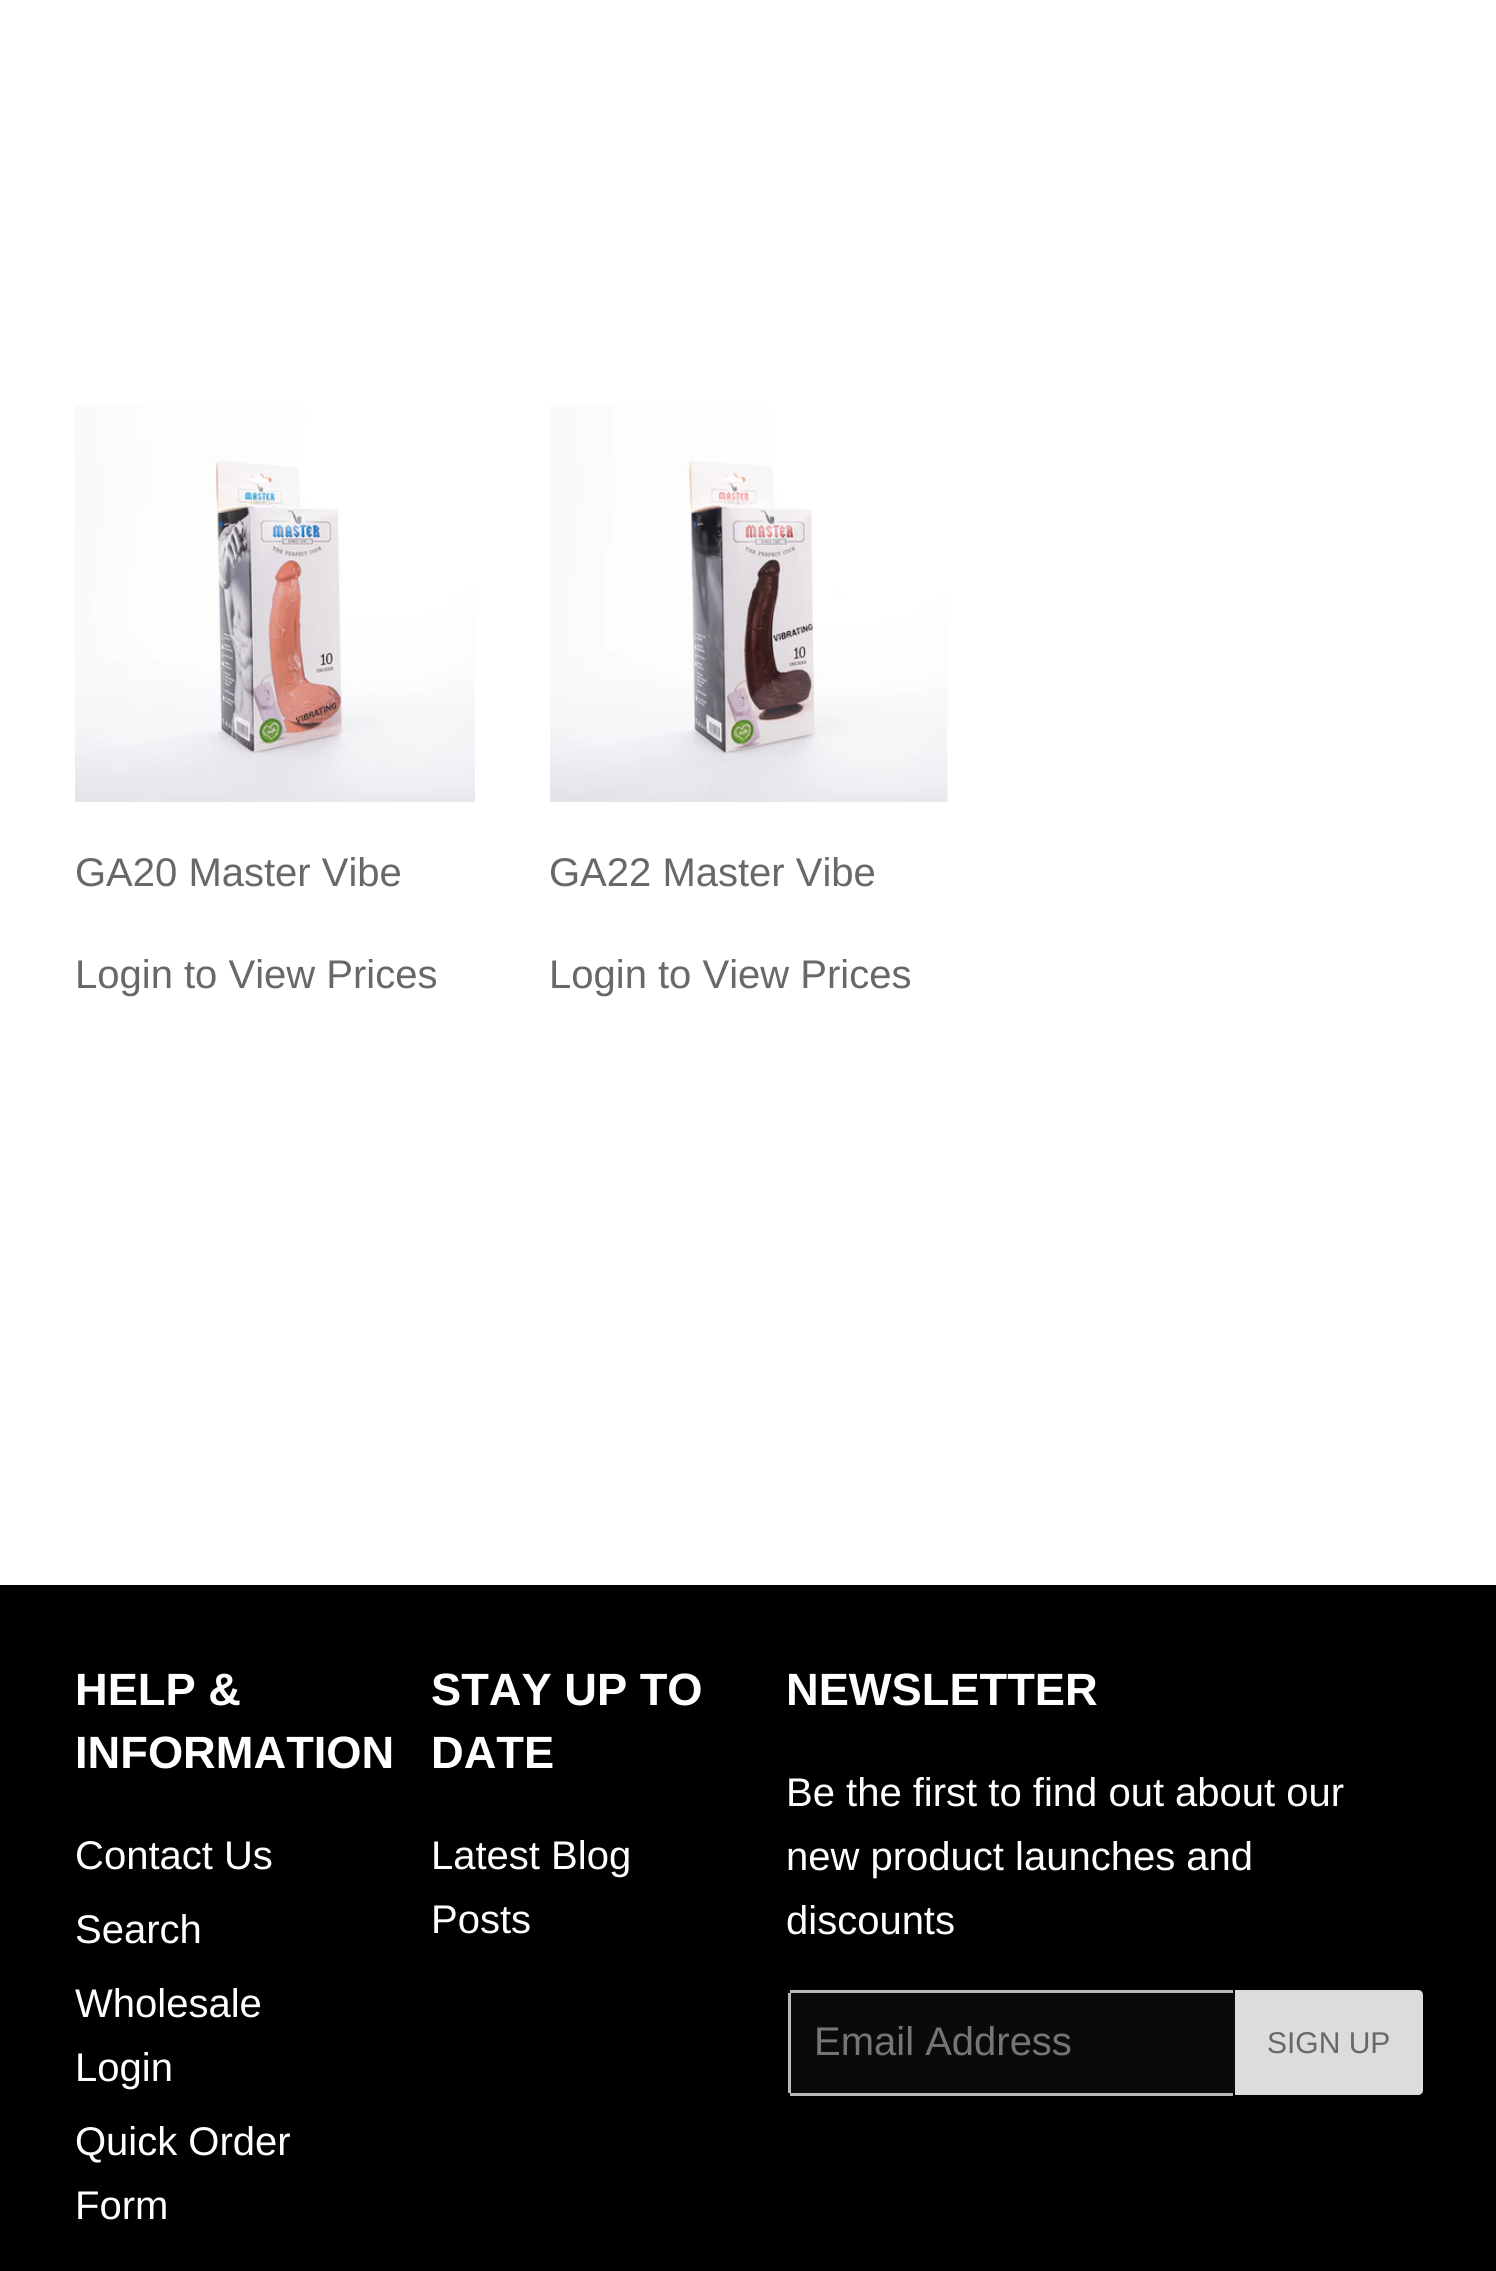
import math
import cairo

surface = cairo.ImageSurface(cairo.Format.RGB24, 1496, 2271)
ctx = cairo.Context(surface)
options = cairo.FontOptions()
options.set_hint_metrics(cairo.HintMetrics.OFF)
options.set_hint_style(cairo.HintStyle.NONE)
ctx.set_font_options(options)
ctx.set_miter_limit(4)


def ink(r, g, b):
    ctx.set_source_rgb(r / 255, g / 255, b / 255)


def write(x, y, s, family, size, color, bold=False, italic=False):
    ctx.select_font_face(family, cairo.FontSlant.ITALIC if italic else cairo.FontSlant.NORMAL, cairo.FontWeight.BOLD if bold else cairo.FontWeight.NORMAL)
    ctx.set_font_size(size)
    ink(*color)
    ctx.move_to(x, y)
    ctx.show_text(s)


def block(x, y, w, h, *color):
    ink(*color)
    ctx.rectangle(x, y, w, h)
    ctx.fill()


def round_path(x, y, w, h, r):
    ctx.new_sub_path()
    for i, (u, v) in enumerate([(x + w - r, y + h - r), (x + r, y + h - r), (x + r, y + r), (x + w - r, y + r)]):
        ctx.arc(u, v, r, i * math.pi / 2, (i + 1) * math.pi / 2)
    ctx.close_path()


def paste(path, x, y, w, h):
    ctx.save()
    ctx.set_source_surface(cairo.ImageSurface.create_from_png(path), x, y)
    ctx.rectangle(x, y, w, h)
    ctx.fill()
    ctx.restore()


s1 = dict(family="Arimo", size=40, color=(107, 103, 103))
s2 = dict(family="Arimo", size=45.25, color=(255, 255, 255), bold=True)
s3 = dict(family="Arimo", size=40, color=(255, 255, 255))
s4 = dict(family="Arimo", size=40, color=(117, 117, 117))
s5 = dict(family="Arimo", size=30, color=(107, 103, 103))

ink(255, 255, 255)
ctx.paint()
paste("pic1.png", 75, 405, 400, 397)
write(75, 886, "GA20 Master Vibe", **s1)
write(75, 988, "Login to View Prices", **s1)
paste("pic2.png", 550, 405, 398, 397)
write(549, 886, "GA22 Master Vibe", **s1)
write(549, 988, "Login to View Prices", **s1)
block(0, 1585, 1496, 686, 0, 0, 0)
write(75, 1705, "HELP &", **s2)
write(75, 1768, "INFORMATION", **s2)
write(75, 1869, "Contact Us", **s3)
write(75, 1943, "Search", **s3)
write(75, 2017, "Wholesale", **s3)
write(75, 2081, "Login", **s3)
write(75, 2155, "Quick Order", **s3)
write(75, 2219, "Form", **s3)
write(431, 1705, "STAY UP TO", **s2)
write(431, 1768, "DATE", **s2)
write(431, 1869, "Latest Blog", **s3)
write(431, 1933, "Posts", **s3)
write(786, 1705, "NEWSLETTER", **s2)
write(786, 1806, "Be the first to find out about our", **s3)
write(786, 1870, "new product launches and", **s3)
write(786, 1934, "discounts", **s3)
ink(11, 10, 10)
round_path(788, 1990, 447, 105, 5)
ctx.fill()
block(790, 1990, 443, 3, 185, 185, 185)
block(790, 2093, 443, 3, 185, 185, 185)
block(788, 1993, 3, 100, 185, 185, 185)
write(814, 2055, "Email Address", **s4)
ink(220, 220, 220)
ctx.new_path()
ctx.move_to(1235, 1990)
ctx.line_to(1418, 1990)
ctx.curve_to(1421, 1990, 1423, 1992, 1423, 1995)
ctx.line_to(1423, 2090)
ctx.curve_to(1423, 2093, 1421, 2095, 1418, 2095)
ctx.line_to(1235, 2095)
ctx.close_path()
ctx.fill()
write(1267, 2053, "SIGN UP", **s5)
surface.write_to_png("screenshot.png")
